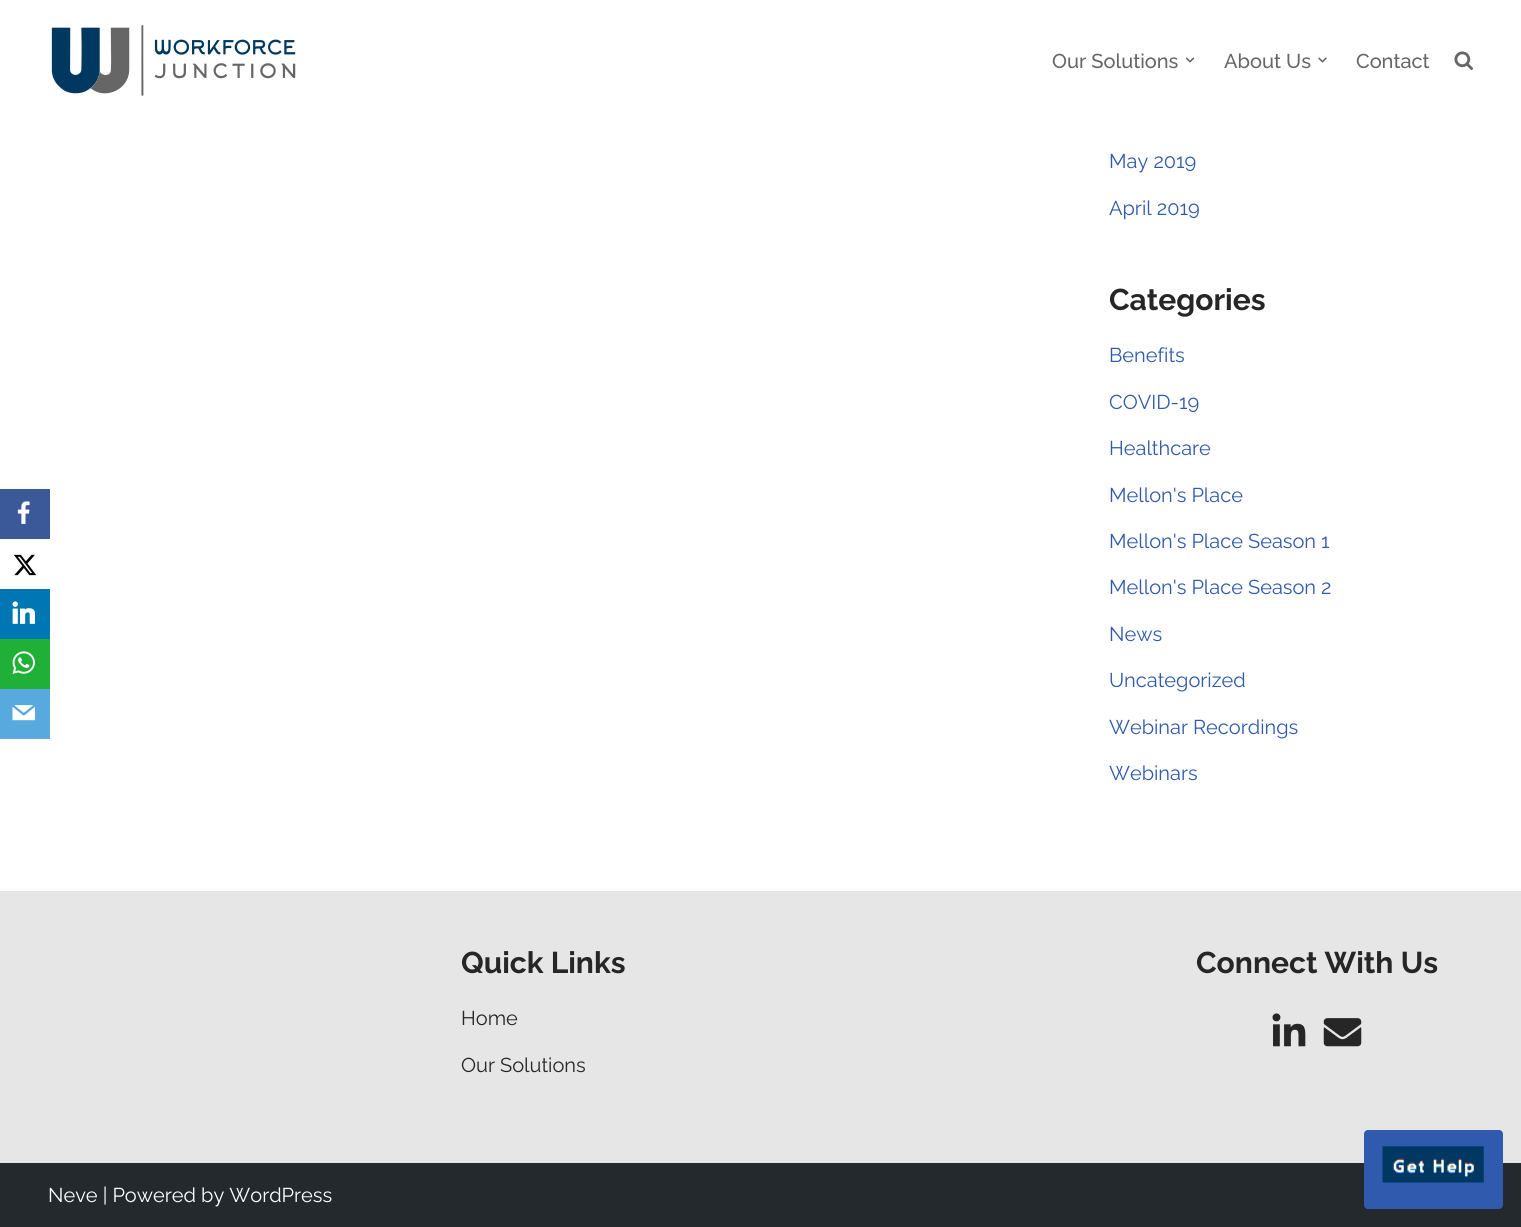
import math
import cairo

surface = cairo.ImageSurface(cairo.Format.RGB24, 1521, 1227)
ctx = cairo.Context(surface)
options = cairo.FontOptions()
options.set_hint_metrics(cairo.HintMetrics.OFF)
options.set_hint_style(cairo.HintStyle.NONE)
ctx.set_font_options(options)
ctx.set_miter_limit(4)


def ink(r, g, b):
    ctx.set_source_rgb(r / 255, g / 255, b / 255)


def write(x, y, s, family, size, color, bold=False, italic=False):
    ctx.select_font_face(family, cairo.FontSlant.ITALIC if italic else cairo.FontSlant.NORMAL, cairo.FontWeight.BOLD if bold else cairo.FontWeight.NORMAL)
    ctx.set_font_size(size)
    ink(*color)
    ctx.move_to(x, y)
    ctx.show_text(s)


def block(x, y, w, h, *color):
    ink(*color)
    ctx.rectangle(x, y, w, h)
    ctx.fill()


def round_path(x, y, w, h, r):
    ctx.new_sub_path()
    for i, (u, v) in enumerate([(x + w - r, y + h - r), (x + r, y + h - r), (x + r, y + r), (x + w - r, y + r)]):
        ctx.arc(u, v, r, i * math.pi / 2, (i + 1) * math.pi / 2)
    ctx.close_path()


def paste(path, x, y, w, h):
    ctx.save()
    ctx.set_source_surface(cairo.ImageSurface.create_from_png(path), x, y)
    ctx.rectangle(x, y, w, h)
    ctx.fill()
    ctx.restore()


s1 = dict(family="Raleway Medium", size=20, color=(102, 102, 102))
s2 = dict(family="Raleway", size=20, color=(47, 90, 174))
s3 = dict(family="Raleway", size=30, color=(39, 38, 38), bold=True)
s4 = dict(family="Raleway", size=20, color=(39, 38, 38))
s5 = dict(family="Raleway", size=20, color=(255, 255, 255))

ink(255, 255, 255)
ctx.paint()
block(0, 489, 50, 50, 59, 89, 152)
paste("pic1.png", 17, 501, 13, 23)
paste("pic2.png", 14, 554, 23, 22)
block(0, 589, 50, 50, 0, 119, 181)
paste("pic3.png", 12, 601, 23, 23)
block(0, 639, 50, 50, 32, 176, 56)
paste("pic4.png", 12, 651, 23, 23)
block(0, 689, 50, 50, 88, 169, 222)
paste("pic5.png", 12, 705, 23, 16)
paste("pic6.png", 51, 25, 245, 71)
write(1052, 68, "Our Solutions", **s1)
paste("pic7.png", 1185, 57, 10, 6)
write(1224, 68, "About Us", **s1)
paste("pic8.png", 1318, 57, 9, 6)
write(1356, 68, "Contact", **s1)
paste("pic9.png", 1454, 51, 19, 19)
write(1109, 168, "May 2019", **s2)
write(1109, 215, "April 2019", **s2)
write(1109, 310, "Categories", **s3)
write(1109, 362, "Benefits", **s2)
write(1109, 409, "COVID-19", **s2)
write(1109, 455, "Healthcare", **s2)
write(1109, 502, "Mellon's Place", **s2)
write(1109, 548, "Mellon's Place Season 1", **s2)
write(1109, 594, "Mellon's Place Season 2", **s2)
write(1109, 641, "News", **s2)
write(1109, 687, "Uncategorized", **s2)
write(1109, 734, "Webinar Recordings", **s2)
write(1109, 780, "Webinars", **s2)
block(0, 891, 1521, 272, 230, 230, 230)
write(461, 973, "Quick Links", **s3)
write(461, 1025, "Home", **s4)
write(461, 1072, "Our Solutions", **s4)
write(1196, 973, "Connect With Us", **s3)
paste("pic10.png", 1272, 1013, 34, 34)
paste("pic11.png", 1323, 1018, 39, 29)
block(0, 1163, 1521, 64, 36, 41, 46)
ink(47, 90, 174)
round_path(1364, 1130, 139, 79, 4)
ctx.fill()
paste("pic12.png", 1382, 1146, 102, 37)
write(48, 1202, "Neve | Powered by WordPress", **s5)
surface.write_to_png("screenshot.png")
